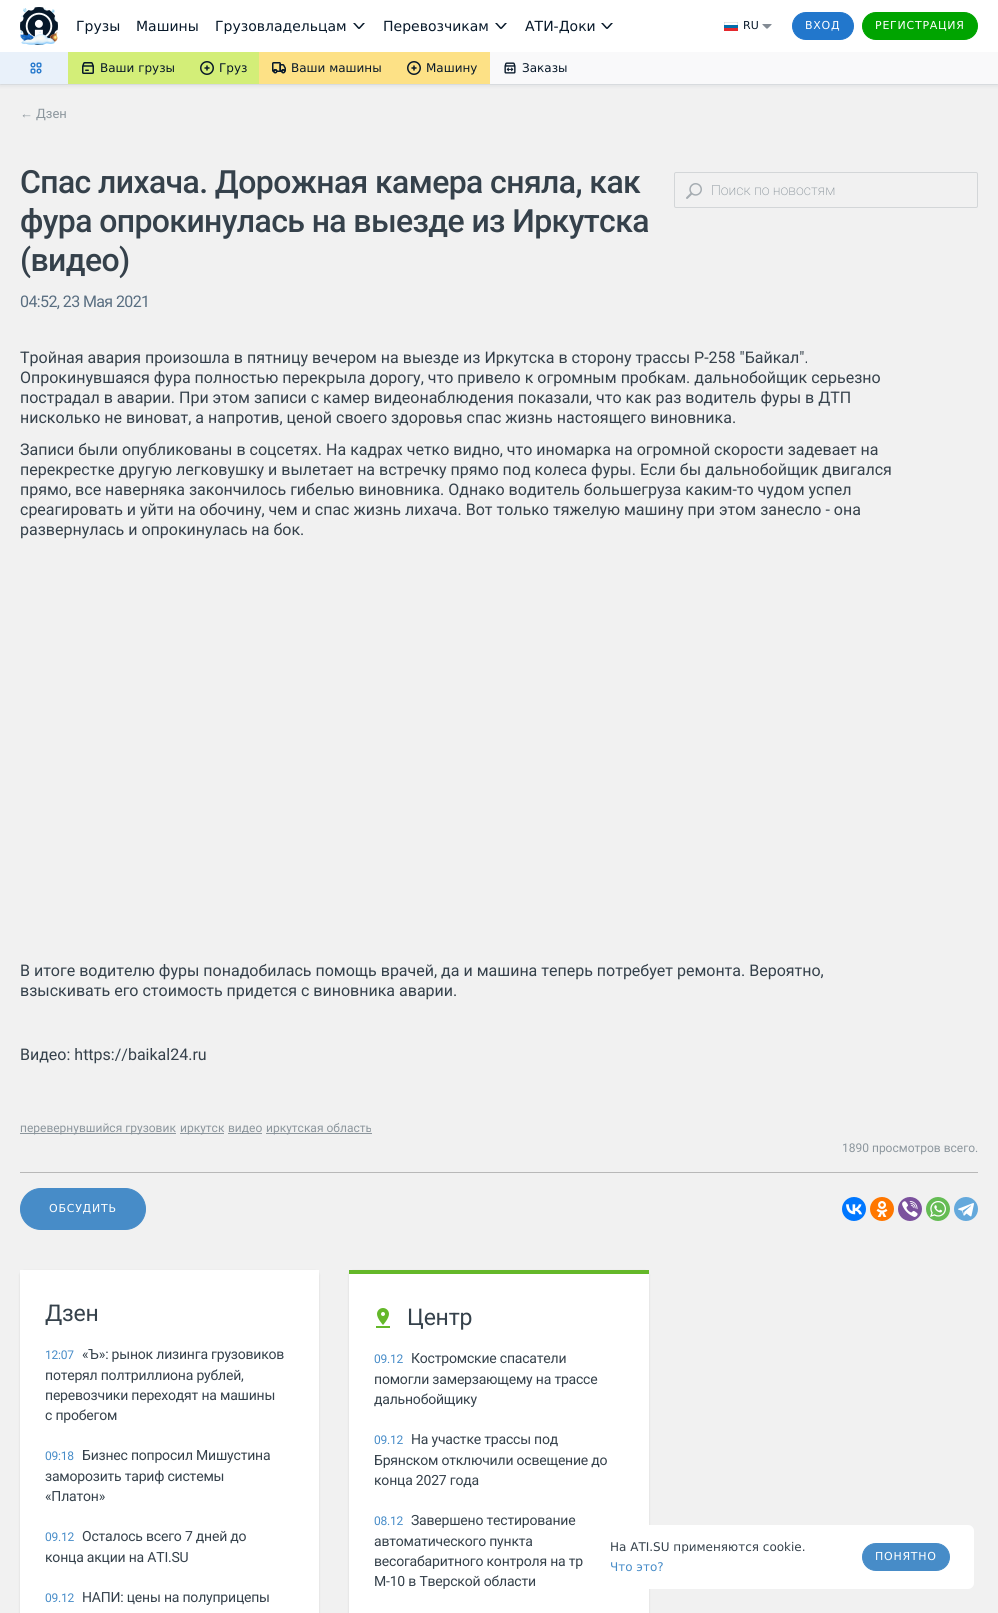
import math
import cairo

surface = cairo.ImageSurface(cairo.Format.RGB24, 998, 1613)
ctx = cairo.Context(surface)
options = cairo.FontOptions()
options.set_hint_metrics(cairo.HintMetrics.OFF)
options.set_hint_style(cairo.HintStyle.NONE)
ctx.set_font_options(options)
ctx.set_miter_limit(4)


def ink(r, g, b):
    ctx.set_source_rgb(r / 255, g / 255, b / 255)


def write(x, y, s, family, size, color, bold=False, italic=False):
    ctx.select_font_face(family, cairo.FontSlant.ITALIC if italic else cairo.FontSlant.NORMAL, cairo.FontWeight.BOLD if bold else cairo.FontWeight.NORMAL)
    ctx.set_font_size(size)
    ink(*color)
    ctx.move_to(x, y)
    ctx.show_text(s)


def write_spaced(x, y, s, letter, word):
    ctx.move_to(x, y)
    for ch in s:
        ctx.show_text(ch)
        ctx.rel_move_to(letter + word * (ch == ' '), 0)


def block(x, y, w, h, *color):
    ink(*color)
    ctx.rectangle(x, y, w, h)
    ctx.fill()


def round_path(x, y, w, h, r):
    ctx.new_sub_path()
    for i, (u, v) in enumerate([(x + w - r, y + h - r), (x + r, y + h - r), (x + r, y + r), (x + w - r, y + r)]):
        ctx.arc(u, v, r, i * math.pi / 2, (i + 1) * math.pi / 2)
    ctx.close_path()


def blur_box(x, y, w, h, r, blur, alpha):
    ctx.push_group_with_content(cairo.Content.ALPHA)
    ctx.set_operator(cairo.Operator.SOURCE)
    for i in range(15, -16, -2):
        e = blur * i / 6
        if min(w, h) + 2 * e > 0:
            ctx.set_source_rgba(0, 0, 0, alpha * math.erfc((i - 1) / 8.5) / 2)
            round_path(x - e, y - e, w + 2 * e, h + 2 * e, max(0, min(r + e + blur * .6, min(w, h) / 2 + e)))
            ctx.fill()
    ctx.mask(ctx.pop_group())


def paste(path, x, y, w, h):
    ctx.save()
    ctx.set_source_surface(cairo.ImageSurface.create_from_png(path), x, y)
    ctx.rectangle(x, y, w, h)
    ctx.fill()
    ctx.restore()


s1 = dict(family="DejaVu Sans", size=14, color=(7, 24, 41))
s2 = dict(family="DejaVu Sans", size=11, color=(7, 24, 41))
s3 = dict(family="DejaVu Sans", size=12, color=(7, 24, 41))
s4 = dict(family="DejaVu Sans", size=12, color=(53, 65, 75))
s5 = dict(family="DejaVu Sans", size=12, color=(71, 140, 200))
s6 = dict(family="Liberation Sans", size=13, color=(140, 150, 157))
s7 = dict(family="Roboto", size=13, color=(140, 150, 157))
s8 = dict(family="Roboto ExtraLight", size=14, color=(140, 150, 157))
s9 = dict(family="Roboto", size=16, color=(53, 65, 75))
s10 = dict(family="Roboto", size=12, color=(140, 150, 157))

ink(241, 241, 241)
ctx.paint()
block(0, 84, 998, 1, 230, 232, 234)
ink(7, 24, 41)
blur_box(0, 54, 998, 32, 0, 2, 0.08)
block(0, 0, 998, 52, 255, 255, 255)
paste("pic1.png", 20, 7, 38, 38)
paste("pic2.png", 20, 8, 38, 37)
write(76, 31, "Грузы", **s1)
write(136, 31, "Машины", **s1)
write(215, 31, "Грузовладельцам", **s1)
paste("pic3.png", 353, 23, 12, 6)
write(383, 31, "Перевозчикам", **s1)
paste("pic3.png", 495, 23, 12, 6)
write(525, 31, "АТИ-Доки", **s1)
paste("pic3.png", 601, 23, 12, 6)
paste("pic4.png", 724, 22, 14, 9)
write(743, 29, "RU", **s2)
paste("pic5.png", 762, 24, 10, 5)
ink(34, 119, 204)
round_path(792.5, 12.5, 61, 27, 13.5)
ctx.fill_preserve()
ctx.set_line_width(1)
ctx.stroke()
ink(255, 255, 255)
write_spaced(805, 29, "ВХОД", 0.75, 0)
ink(0, 164, 0)
round_path(862.5, 12.5, 115, 27, 13.5)
ctx.fill_preserve()
ctx.stroke()
ink(255, 255, 255)
write_spaced(875, 29, "РЕГИСТРАЦИЯ", 0.75, 0)
block(490, 52, 508, 32, 249, 249, 250)
block(0, 52, 68, 32, 233, 241, 250)
paste("pic6.png", 30, 62, 12, 12)
block(68, 52, 191, 32, 211, 238, 120)
paste("pic7.png", 82, 62, 12, 12)
write(100, 72, "Ваши грузы", **s3)
paste("pic8.png", 200, 61, 14, 14)
write(219, 72, "Груз", **s3)
block(259, 52, 231, 32, 253, 225, 134)
paste("pic9.png", 272, 62, 14, 12)
write(291, 72, "Ваши машины", **s3)
paste("pic10.png", 407, 61, 14, 14)
write(426, 72, "Машину", **s3)
paste("pic11.png", 504, 62, 12, 12)
write(522, 72, "Заказы", **s3)
ink(0, 0, 0)
blur_box(349, 1271, 300, 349, 4, 1, 0.1)
block(349, 1274, 300, 339, 255, 255, 255)
round_path(586, 1525, 388, 64, 6)
ctx.fill()
write(610, 1551, "На ATI.SU применяются cookie.", **s4)
write(610, 1571, "Что это?", **s5)
round_path(862.5, 1543.5, 87, 27, 13.5)
ctx.fill_preserve()
ctx.stroke()
ctx.set_font_size(11)
ink(255, 255, 255)
write_spaced(875, 1560, "ПОНЯТНО", 0.75, 0)
write(20, 118, "←", **s6)
write(36, 118, "Дзен", **s7)
ctx.select_font_face("Roboto Medium")
ctx.set_font_size(32)
ink(53, 65, 75)
write_spaced(20, 193, "Спас лихача. Дорожная камера сняла, как", -0.6, 0)
write_spaced(20, 232, "фура опрокинулась на выезде из Иркутска", -0.6, 0)
write_spaced(20, 271, "(видео)", -0.6, 0)
ctx.select_font_face("Roboto")
ctx.set_font_size(16)
ink(89, 110, 129)
write_spaced(20, 307, "04:52, 23 Мая 2021", -0.6, 0)
round_path(674.5, 172.5, 303, 35, 1.5)
ink(211, 214, 216)
ctx.stroke()
paste("pic12.png", 686, 183, 16, 16)
write(711, 195, "Поиск по новостям", **s8)
write(20, 363, "Тройная авария произошла в пятницу вечером на выезде из Иркутска в сторону трассы Р-258 \"Байкал\".", **s9)
write(20, 383, "Опрокинувшаяся фура полностью перекрыла дорогу, что привело к огромным пробкам. дальнобойщик серьезно", **s9)
write(20, 403, "пострадал в аварии. При этом записи с камер видеонаблюдения показали, что как раз водитель фуры в ДТП", **s9)
write(20, 423, "нисколько не виноват, а напротив, ценой своего здоровья спас жизнь настоящего виновника.", **s9)
write(20, 455, "Записи были опубликованы в соцсетях. На кадрах четко видно, что иномарка на огромной скорости задевает на", **s9)
write(20, 475, "перекрестке другую легковушку и вылетает на встречку прямо под колеса фуры. Если бы дальнобойщик двигался", **s9)
write(20, 495, "прямо, все наверняка закончилось гибелью виновника. Однако водитель большегруза каким-то чудом успел", **s9)
write(20, 515, "среагировать и уйти на обочину, чем и спас жизнь лихача. Вот только тяжелую машину при этом занесло - она", **s9)
write(20, 535, "развернулась и опрокинулась на бок.", **s9)
write(20, 976, "В итоге водителю фуры понадобилась помощь врачей, да и машина теперь потребует ремонта. Вероятно,", **s9)
write(20, 996, "взыскивать его стоимость придется с виновника аварии.", **s9)
write(20, 1060, "Видео: https://baikal24.ru", **s9)
block(20, 1133, 156, 1, 140, 150, 157)
write(20, 1132, "перевернувшийся грузовик", **s10)
block(180, 1133, 44, 1, 140, 150, 157)
write(180, 1132, "иркутск", **s10)
block(228, 1133, 34, 1, 140, 150, 157)
write(228, 1132, "видео", **s10)
block(266, 1133, 106, 1, 140, 150, 157)
write(266, 1132, "иркутская область", **s10)
write(842, 1152, "1890 просмотров всего.", **s10)
block(20, 1172, 958, 1, 184, 184, 184)
ink(71, 140, 200)
round_path(20.5, 1188.5, 125, 41, 20.5)
ctx.fill_preserve()
ctx.stroke()
ctx.select_font_face("DejaVu Sans")
ctx.set_font_size(11)
ink(255, 255, 255)
write_spaced(49, 1212, "ОБСУДИТЬ", 0.75, 0)
ink(0, 119, 255)
ctx.new_path()
ctx.arc(854, 1209, 12, 0, 2 * math.pi)
ctx.fill()
paste("pic13.png", 846, 1204, 16, 11)
ink(255, 119, 0)
ctx.arc(882, 1209, 12, 0, 2 * math.pi)
ctx.fill()
paste("pic14.png", 876, 1201, 12, 16)
ink(123, 81, 157)
ctx.arc(910, 1209, 12, 0, 2 * math.pi)
ctx.fill()
paste("pic15.png", 902, 1201, 16, 16)
ink(101, 188, 84)
ctx.arc(938, 1209, 12, 0, 2 * math.pi)
ctx.fill()
paste("pic16.png", 930, 1201, 16, 16)
ink(100, 169, 220)
ctx.arc(966, 1209, 12, 0, 2 * math.pi)
ctx.fill()
paste("pic17.png", 958, 1203, 16, 14)
ink(0, 0, 0)
blur_box(20, 1271, 299, 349, 4, 1, 0.1)
block(20, 1270, 299, 343, 255, 255, 255)
ctx.select_font_face("Roboto")
ctx.set_font_size(23)
ink(53, 65, 75)
write_spaced(45, 1321, "Дзен", -0.2, 0)
ctx.set_font_size(12)
ink(71, 140, 200)
write_spaced(45, 1359, "12:07", -0.2, 0)
ctx.set_font_size(14)
ink(53, 65, 75)
write_spaced(82, 1359, "«Ъ»: рынок лизинга грузовиков", -0.2, 0)
write_spaced(45, 1380, "потерял полтриллиона рублей,", -0.2, 0)
write_spaced(45, 1400, "перевозчики переходят на машины", -0.2, 0)
write_spaced(45, 1420, "с пробегом", -0.2, 0)
ctx.set_font_size(12)
ink(71, 140, 200)
write_spaced(45, 1460, "09:18", -0.2, 0)
ctx.set_font_size(14)
ink(53, 65, 75)
write_spaced(82, 1460, "Бизнес попросил Мишустина", -0.2, 0)
write_spaced(45, 1481, "заморозить тариф системы", -0.2, 0)
write_spaced(45, 1501, "«Платон»", -0.2, 0)
ctx.set_font_size(12)
ink(71, 140, 200)
write_spaced(45, 1541, "09.12", -0.2, 0)
ctx.set_font_size(14)
ink(53, 65, 75)
write_spaced(82, 1541, "Осталось всего 7 дней до", -0.2, 0)
write_spaced(45, 1562, "конца акции на ATI.SU", -0.2, 0)
ctx.set_font_size(12)
ink(71, 140, 200)
write_spaced(45, 1602, "09.12", -0.2, 0)
ctx.set_font_size(14)
ink(53, 65, 75)
write_spaced(82, 1602, "НАПИ: цены на полуприцепы", -0.2, 0)
block(349, 1270, 300, 4, 100, 184, 41)
paste("pic18.png", 376, 1308, 14, 20)
ctx.set_font_size(23)
ink(53, 65, 75)
write_spaced(407, 1325, "Центр", -0.2, 0)
ctx.set_font_size(12)
ink(71, 140, 200)
write_spaced(374, 1363, "09.12", -0.2, 0)
ctx.set_font_size(14)
ink(53, 65, 75)
write_spaced(411, 1363, "Костромские спасатели", -0.2, 0)
write_spaced(374, 1384, "помогли замерзающему на трассе", -0.2, 0)
write_spaced(374, 1404, "дальнобойщику", -0.2, 0)
ctx.set_font_size(12)
ink(71, 140, 200)
write_spaced(374, 1444, "09.12", -0.2, 0)
ctx.set_font_size(14)
ink(53, 65, 75)
write_spaced(411, 1444, "На участке трассы под", -0.2, 0)
write_spaced(374, 1465, "Брянском отключили освещение до", -0.2, 0)
write_spaced(374, 1485, "конца 2027 года", -0.2, 0)
ctx.set_font_size(12)
ink(71, 140, 200)
write_spaced(374, 1525, "08.12", -0.2, 0)
ctx.set_font_size(14)
ink(53, 65, 75)
write_spaced(411, 1525, "Завершено тестирование", -0.2, 0)
write_spaced(374, 1546, "автоматического пункта", -0.2, 0)
write_spaced(374, 1566, "весогабаритного контроля на тр", -0.2, 0)
write_spaced(374, 1586, "М-10 в Тверской области", -0.2, 0)
surface.write_to_png("screenshot.png")
